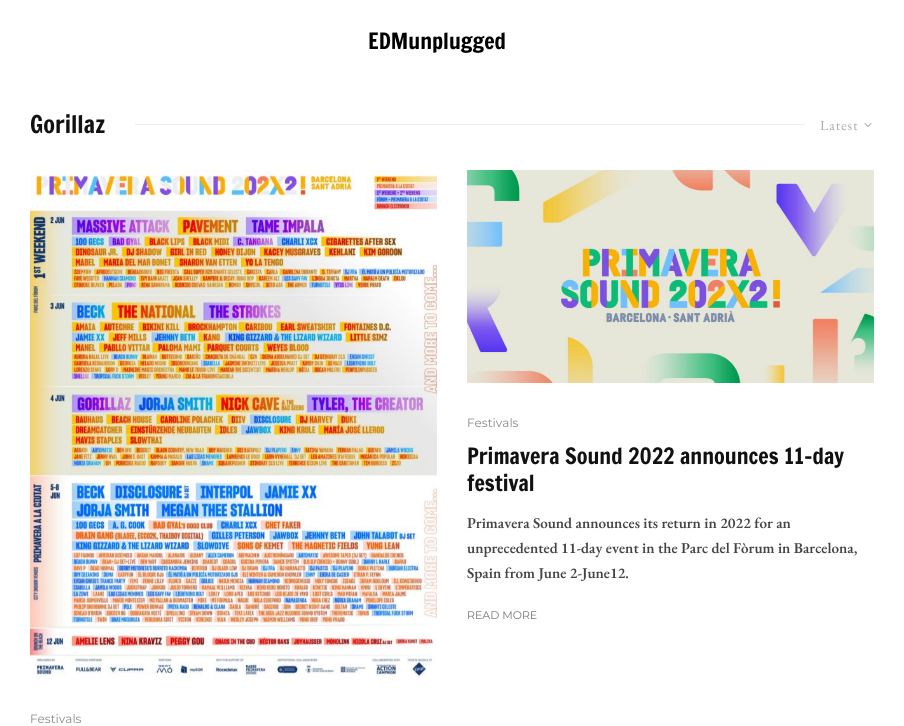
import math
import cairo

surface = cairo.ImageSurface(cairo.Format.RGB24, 904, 726)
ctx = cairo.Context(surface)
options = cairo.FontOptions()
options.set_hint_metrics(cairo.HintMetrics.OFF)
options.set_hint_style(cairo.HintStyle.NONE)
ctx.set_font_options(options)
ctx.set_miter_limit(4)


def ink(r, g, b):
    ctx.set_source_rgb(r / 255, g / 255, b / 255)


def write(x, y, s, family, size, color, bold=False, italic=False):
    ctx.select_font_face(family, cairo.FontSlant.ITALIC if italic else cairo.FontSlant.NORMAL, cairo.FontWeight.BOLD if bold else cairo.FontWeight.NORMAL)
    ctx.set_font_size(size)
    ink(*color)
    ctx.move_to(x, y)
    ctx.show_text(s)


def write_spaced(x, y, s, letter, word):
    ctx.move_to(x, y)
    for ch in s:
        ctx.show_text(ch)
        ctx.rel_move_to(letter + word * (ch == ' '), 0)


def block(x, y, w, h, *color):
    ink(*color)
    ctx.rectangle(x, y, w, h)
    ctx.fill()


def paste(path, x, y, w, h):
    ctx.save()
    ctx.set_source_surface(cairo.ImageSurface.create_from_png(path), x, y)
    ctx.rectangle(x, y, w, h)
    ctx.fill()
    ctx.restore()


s1 = dict(family="Francois One", size=22, color=(0, 0, 0))
s2 = dict(family="Francois One", size=24, color=(17, 17, 17))
s3 = dict(family="Montserrat", size=12, color=(136, 136, 136))
s4 = dict(family="Francois One", size=22, color=(17, 17, 17))
s5 = dict(family="EB Garamond SemiBold", size=15, color=(68, 68, 68))
s6 = dict(family="Montserrat", size=11, color=(118, 118, 118))

ink(255, 255, 255)
ctx.paint()
write(368, 49, "EDMunplugged", **s1)
write(30, 133, "Gorillaz", **s2)
block(135, 124, 670, 1, 238, 238, 238)
ctx.select_font_face("EB Garamond")
ctx.set_font_size(14)
ink(170, 170, 170)
write_spaced(820, 130, "Latest", 1, 0)
paste("pic1.png", 864, 123, 8, 4)
paste("pic2.png", 467, 170, 407, 213)
write(467, 427, "Festivals", **s3)
write(467, 464, "Primavera Sound 2022 announces 11-day", **s4)
write(467, 491, "festival", **s4)
write(467, 528, "Primavera Sound announces its return in 2022 for an", **s5)
write(467, 553, "unprecedented 11-day event in the Parc del Fòrum in Barcelona,", **s5)
write(467, 578, "Spain from June 2-June12.", **s5)
write(467, 619, "READ MORE", **s6)
paste("pic3.png", 30, 170, 407, 509)
write(30, 723, "Festivals", **s3)
surface.write_to_png("screenshot.png")
